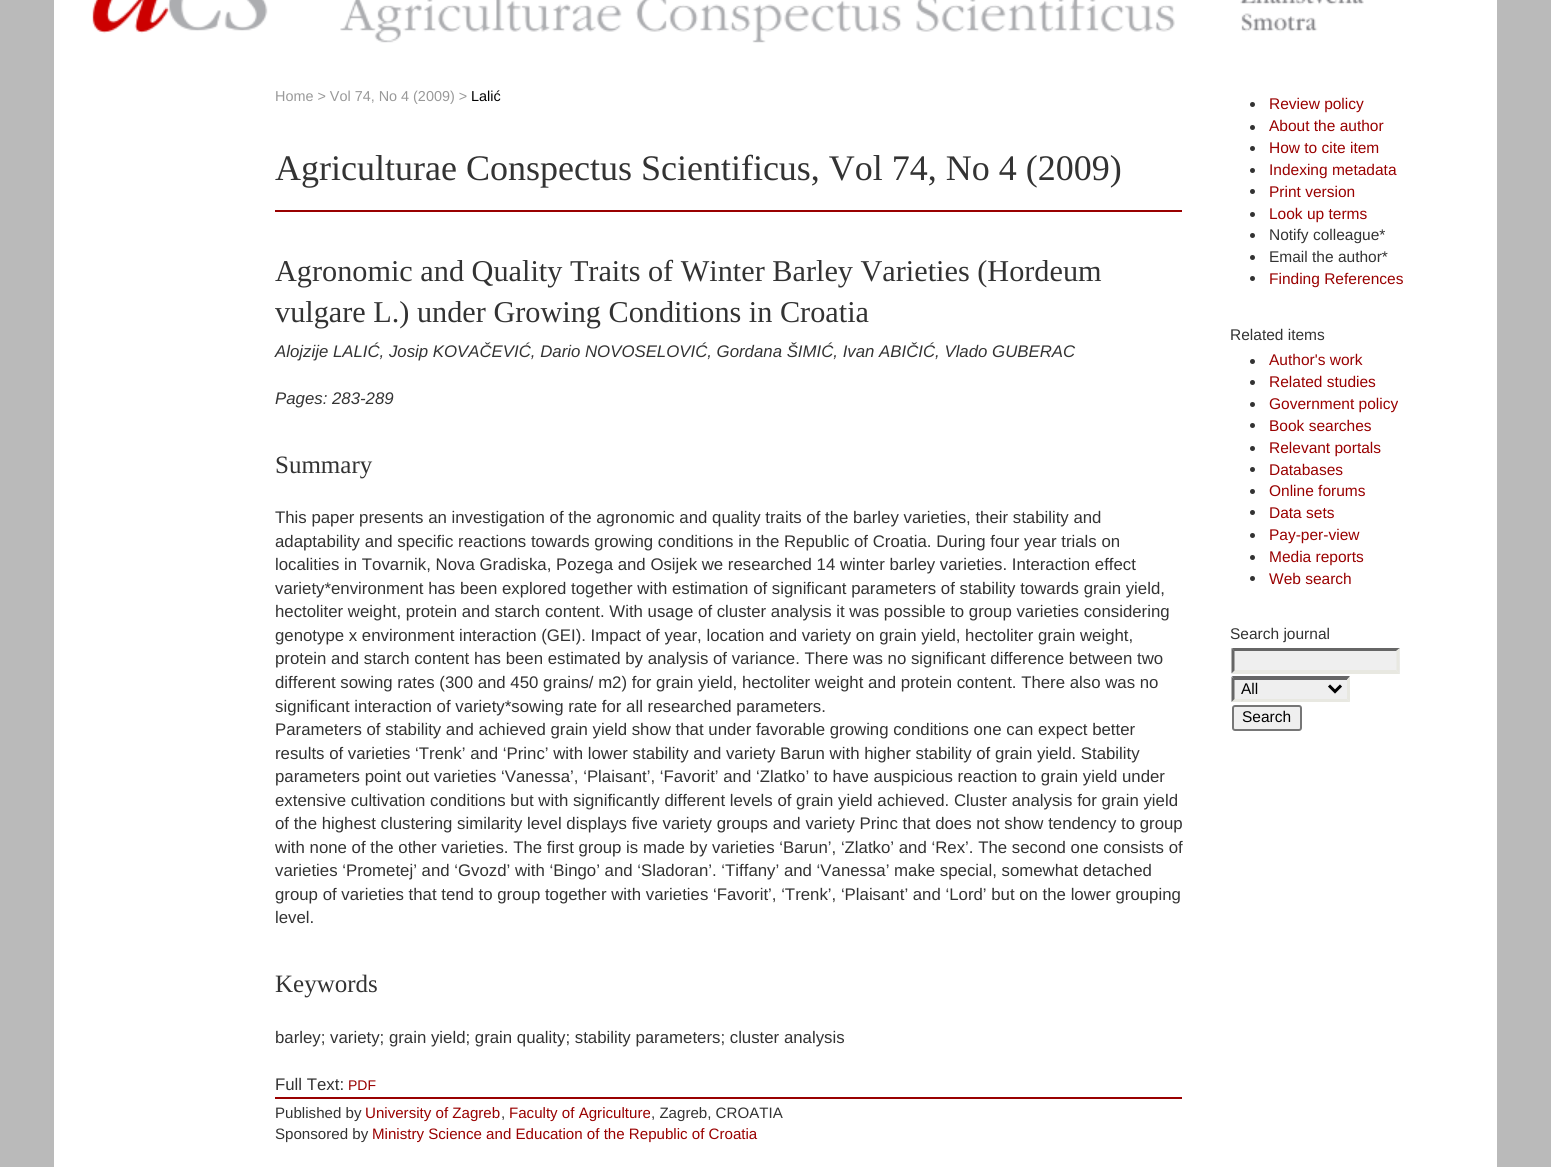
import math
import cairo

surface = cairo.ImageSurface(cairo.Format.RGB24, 1551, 1167)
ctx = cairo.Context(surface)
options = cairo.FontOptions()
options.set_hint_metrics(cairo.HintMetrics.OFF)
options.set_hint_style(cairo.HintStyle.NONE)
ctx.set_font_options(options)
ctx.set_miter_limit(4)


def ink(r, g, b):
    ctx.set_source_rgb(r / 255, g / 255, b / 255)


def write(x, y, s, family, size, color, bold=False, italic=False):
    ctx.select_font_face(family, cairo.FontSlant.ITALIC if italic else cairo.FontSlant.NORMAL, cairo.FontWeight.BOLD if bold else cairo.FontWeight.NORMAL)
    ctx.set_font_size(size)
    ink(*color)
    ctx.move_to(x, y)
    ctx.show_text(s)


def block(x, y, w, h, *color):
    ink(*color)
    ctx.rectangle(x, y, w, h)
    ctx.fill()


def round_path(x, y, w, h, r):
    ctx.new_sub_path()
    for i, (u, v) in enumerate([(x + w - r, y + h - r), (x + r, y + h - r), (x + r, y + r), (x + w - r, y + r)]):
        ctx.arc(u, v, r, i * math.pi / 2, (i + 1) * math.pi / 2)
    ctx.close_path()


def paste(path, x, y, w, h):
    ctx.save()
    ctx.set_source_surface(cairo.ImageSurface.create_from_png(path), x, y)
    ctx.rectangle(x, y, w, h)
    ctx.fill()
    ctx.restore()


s1 = dict(family="Liberation Sans", size=14.4, color=(153, 153, 153))
s2 = dict(family="Liberation Sans", size=14.4, color=(0, 0, 0))
s3 = dict(family="Liberation Serif", size=36, color=(51, 51, 51))
s4 = dict(family="Liberation Serif", size=30.25, color=(51, 51, 51))
s5 = dict(family="Liberation Sans", size=16.8, color=(51, 51, 51), italic=True)
s6 = dict(family="Liberation Serif", size=25, color=(51, 51, 51))
s7 = dict(family="Liberation Sans", size=16.8, color=(51, 51, 51))
s8 = dict(family="Liberation Sans", size=14, color=(153, 0, 0))
s9 = dict(family="Liberation Sans", size=15.1, color=(51, 51, 51))
s10 = dict(family="Liberation Sans", size=15.1, color=(153, 0, 0))
s11 = dict(family="Liberation Sans", size=15.5, color=(153, 0, 0))
s12 = dict(family="Liberation Sans", size=15.5, color=(51, 51, 51))
s13 = dict(family="Liberation Sans", size=15.5, color=(0, 0, 0))

ink(186, 186, 186)
ctx.paint()
block(54, 0, 1443, 1167, 255, 255, 255)
paste("pic1.png", 92, 0, 1272, 43)
write(275, 101, "Home > Vol 74, No 4 (2009) >", **s1)
write(471, 101, "Lalić", **s2)
write(275, 180, "Agriculturae Conspectus Scientificus, Vol 74, No 4 (2009)", **s3)
block(275, 210, 907, 2, 153, 0, 0)
write(275, 281, "Agronomic and Quality Traits of Winter Barley Varieties (Hordeum", **s4)
write(275, 322, "vulgare L.) under Growing Conditions in Croatia", **s4)
write(275, 357, "Alojzije LALIĆ, Josip KOVAČEVIĆ, Dario NOVOSELOVIĆ, Gordana ŠIMIĆ, Ivan ABIČIĆ, Vlado GUBERAC", **s5)
write(275, 404, "Pages: 283-289", **s5)
write(275, 473, "Summary", **s6)
write(275, 523, "This paper presents an investigation of the agronomic and quality traits of the barley varieties, their stability and", **s7)
write(275, 547, "adaptability and specific reactions towards growing conditions in the Republic of Croatia. During four year trials on", **s7)
write(275, 570, "localities in Tovarnik, Nova Gradiska, Pozega and Osijek we researched 14 winter barley varieties. Interaction effect", **s7)
write(275, 594, "variety*environment has been explored together with estimation of significant parameters of stability towards grain yield,", **s7)
write(275, 617, "hectoliter weight, protein and starch content. With usage of cluster analysis it was possible to group varieties considering", **s7)
write(275, 641, "genotype x environment interaction (GEI). Impact of year, location and variety on grain yield, hectoliter grain weight,", **s7)
write(275, 664, "protein and starch content has been estimated by analysis of variance. There was no significant difference between two", **s7)
write(275, 688, "different sowing rates (300 and 450 grains/ m2) for grain yield, hectoliter weight and protein content. There also was no", **s7)
write(275, 712, "significant interaction of variety*sowing rate for all researched parameters.", **s7)
write(275, 735, "Parameters of stability and achieved grain yield show that under favorable growing conditions one can expect better", **s7)
write(275, 759, "results of varieties ‘Trenk’ and ‘Princ’ with lower stability and variety Barun with higher stability of grain yield. Stability", **s7)
write(275, 782, "parameters point out varieties ‘Vanessa’, ‘Plaisant’, ‘Favorit’ and ‘Zlatko’ to have auspicious reaction to grain yield under", **s7)
write(275, 806, "extensive cultivation conditions but with significantly different levels of grain yield achieved. Cluster analysis for grain yield", **s7)
write(275, 829, "of the highest clustering similarity level displays five variety groups and variety Princ that does not show tendency to group", **s7)
write(275, 853, "with none of the other varieties. The first group is made by varieties ‘Barun’, ‘Zlatko’ and ‘Rex’. The second one consists of", **s7)
write(275, 876, "varieties ‘Prometej’ and ‘Gvozd’ with ‘Bingo’ and ‘Sladoran’. ‘Tiffany’ and ‘Vanessa’ make special, somewhat detached", **s7)
write(275, 900, "group of varieties that tend to group together with varieties ‘Favorit’, ‘Trenk’, ‘Plaisant’ and ‘Lord’ but on the lower grouping", **s7)
write(275, 923, "level.", **s7)
write(275, 992, "Keywords", **s6)
write(275, 1043, "barley; variety; grain yield; grain quality; stability parameters; cluster analysis", **s7)
write(275, 1090, "Full Text:", **s7)
write(348, 1090, "PDF", **s8)
block(275, 1097, 907, 2, 153, 0, 0)
write(275, 1118, "Published by", **s9)
write(365, 1118, "University of Zagreb", **s10)
write(501, 1118, ",", **s9)
write(509, 1118, "Faculty of Agriculture", **s10)
write(651, 1118, ", Zagreb, CROATIA", **s9)
write(275, 1139, "Sponsored by", **s9)
write(372, 1139, "Ministry Science and Education of the Republic of Croatia", **s10)
ink(51, 51, 51)
ctx.new_path()
ctx.arc(1252.5, 104.5, 2.5, 0, 2 * math.pi)
ctx.fill()
write(1269, 109, "Review policy", **s11)
ink(51, 51, 51)
ctx.new_path()
ctx.arc(1252.5, 127.5, 2.5, 0, 2 * math.pi)
ctx.fill()
write(1269, 131, "About the author", **s11)
ink(51, 51, 51)
ctx.new_path()
ctx.arc(1252.5, 148.5, 2.5, 0, 2 * math.pi)
ctx.fill()
write(1269, 153, "How to cite item", **s11)
ink(51, 51, 51)
ctx.new_path()
ctx.arc(1252.5, 170.5, 2.5, 0, 2 * math.pi)
ctx.fill()
write(1269, 175, "Indexing metadata", **s11)
ink(51, 51, 51)
ctx.new_path()
ctx.arc(1252.5, 191.5, 2.5, 0, 2 * math.pi)
ctx.fill()
write(1269, 197, "Print version", **s11)
ink(51, 51, 51)
ctx.new_path()
ctx.arc(1252.5, 214.5, 2.5, 0, 2 * math.pi)
ctx.fill()
write(1269, 219, "Look up terms", **s11)
ink(51, 51, 51)
ctx.new_path()
ctx.arc(1252.5, 235.5, 2.5, 0, 2 * math.pi)
ctx.fill()
write(1269, 240, "Notify colleague*", **s12)
ctx.new_path()
ctx.arc(1252.5, 257.5, 2.5, 0, 2 * math.pi)
ctx.fill()
write(1269, 262, "Email the author*", **s12)
ctx.new_path()
ctx.arc(1252.5, 278.5, 2.5, 0, 2 * math.pi)
ctx.fill()
write(1269, 284, "Finding References", **s11)
write(1230, 340, "Related items", **s12)
ctx.new_path()
ctx.arc(1252.5, 361.5, 2.5, 0, 2 * math.pi)
ctx.fill()
write(1269, 365, "Author's work", **s11)
ink(51, 51, 51)
ctx.new_path()
ctx.arc(1252.5, 382.5, 2.5, 0, 2 * math.pi)
ctx.fill()
write(1269, 387, "Related studies", **s11)
ink(51, 51, 51)
ctx.new_path()
ctx.arc(1252.5, 404.5, 2.5, 0, 2 * math.pi)
ctx.fill()
write(1269, 409, "Government policy", **s11)
ink(51, 51, 51)
ctx.new_path()
ctx.arc(1252.5, 425.5, 2.5, 0, 2 * math.pi)
ctx.fill()
write(1269, 431, "Book searches", **s11)
ink(51, 51, 51)
ctx.new_path()
ctx.arc(1252.5, 448.5, 2.5, 0, 2 * math.pi)
ctx.fill()
write(1269, 453, "Relevant portals", **s11)
ink(51, 51, 51)
ctx.new_path()
ctx.arc(1252.5, 469.5, 2.5, 0, 2 * math.pi)
ctx.fill()
write(1269, 475, "Databases", **s11)
ink(51, 51, 51)
ctx.new_path()
ctx.arc(1252.5, 491.5, 2.5, 0, 2 * math.pi)
ctx.fill()
write(1269, 496, "Online forums", **s11)
ink(51, 51, 51)
ctx.new_path()
ctx.arc(1252.5, 512.5, 2.5, 0, 2 * math.pi)
ctx.fill()
write(1269, 518, "Data sets", **s11)
ink(51, 51, 51)
ctx.new_path()
ctx.arc(1252.5, 535.5, 2.5, 0, 2 * math.pi)
ctx.fill()
write(1269, 540, "Pay-per-view", **s11)
ink(51, 51, 51)
ctx.new_path()
ctx.arc(1252.5, 557.5, 2.5, 0, 2 * math.pi)
ctx.fill()
write(1269, 562, "Media reports", **s11)
ink(51, 51, 51)
ctx.new_path()
ctx.arc(1252.5, 578.5, 2.5, 0, 2 * math.pi)
ctx.fill()
write(1269, 584, "Web search", **s11)
write(1230, 639, "Search journal", **s12)
block(1232, 648, 168, 26, 239, 239, 239)
ink(102, 102, 102)
ctx.new_path()
ctx.move_to(1232, 648)
ctx.line_to(1400, 648)
ctx.line_to(1396, 651)
ctx.line_to(1234, 651)
ctx.close_path()
ctx.fill()
ink(232, 232, 225)
ctx.new_path()
ctx.move_to(1399.5, 648)
ctx.line_to(1399.5, 673.5)
ctx.line_to(1396.5, 670.5)
ctx.line_to(1396.5, 651)
ctx.close_path()
ctx.fill()
ctx.new_path()
ctx.move_to(1400, 674)
ctx.line_to(1232, 674)
ctx.line_to(1234, 670)
ctx.line_to(1396, 670)
ctx.close_path()
ctx.fill()
ink(102, 102, 102)
ctx.new_path()
ctx.move_to(1231.5, 673.5)
ctx.line_to(1231.5, 648)
ctx.line_to(1234.5, 651)
ctx.line_to(1234.5, 670.5)
ctx.close_path()
ctx.fill()
block(1232, 677, 118, 25, 239, 239, 239)
ink(102, 102, 102)
ctx.new_path()
ctx.move_to(1232, 676)
ctx.line_to(1350, 676)
ctx.line_to(1347, 680)
ctx.line_to(1234, 680)
ctx.close_path()
ctx.fill()
ink(232, 232, 225)
ctx.new_path()
ctx.move_to(1350, 676.5)
ctx.line_to(1350, 702)
ctx.line_to(1347, 699)
ctx.line_to(1347, 679.5)
ctx.close_path()
ctx.fill()
ctx.new_path()
ctx.move_to(1350, 702)
ctx.line_to(1232, 702)
ctx.line_to(1234, 699)
ctx.line_to(1347, 699)
ctx.close_path()
ctx.fill()
ink(102, 102, 102)
ctx.new_path()
ctx.move_to(1231.5, 702)
ctx.line_to(1231.5, 676.5)
ctx.line_to(1234.5, 679.5)
ctx.line_to(1234.5, 699)
ctx.close_path()
ctx.fill()
ctx.new_path()
ctx.move_to(1329, 685.5)
ctx.line_to(1335, 691.5)
ctx.line_to(1341, 685.5)
ink(0, 0, 0)
ctx.set_line_width(3)
ctx.stroke()
write(1241, 694, "All", **s13)
ink(239, 239, 239)
round_path(1233, 706, 68, 24, 2)
ctx.fill_preserve()
ink(118, 118, 118)
ctx.set_line_width(2)
ctx.stroke()
write(1242, 722, "Search", **s13)
surface.write_to_png("screenshot.png")
